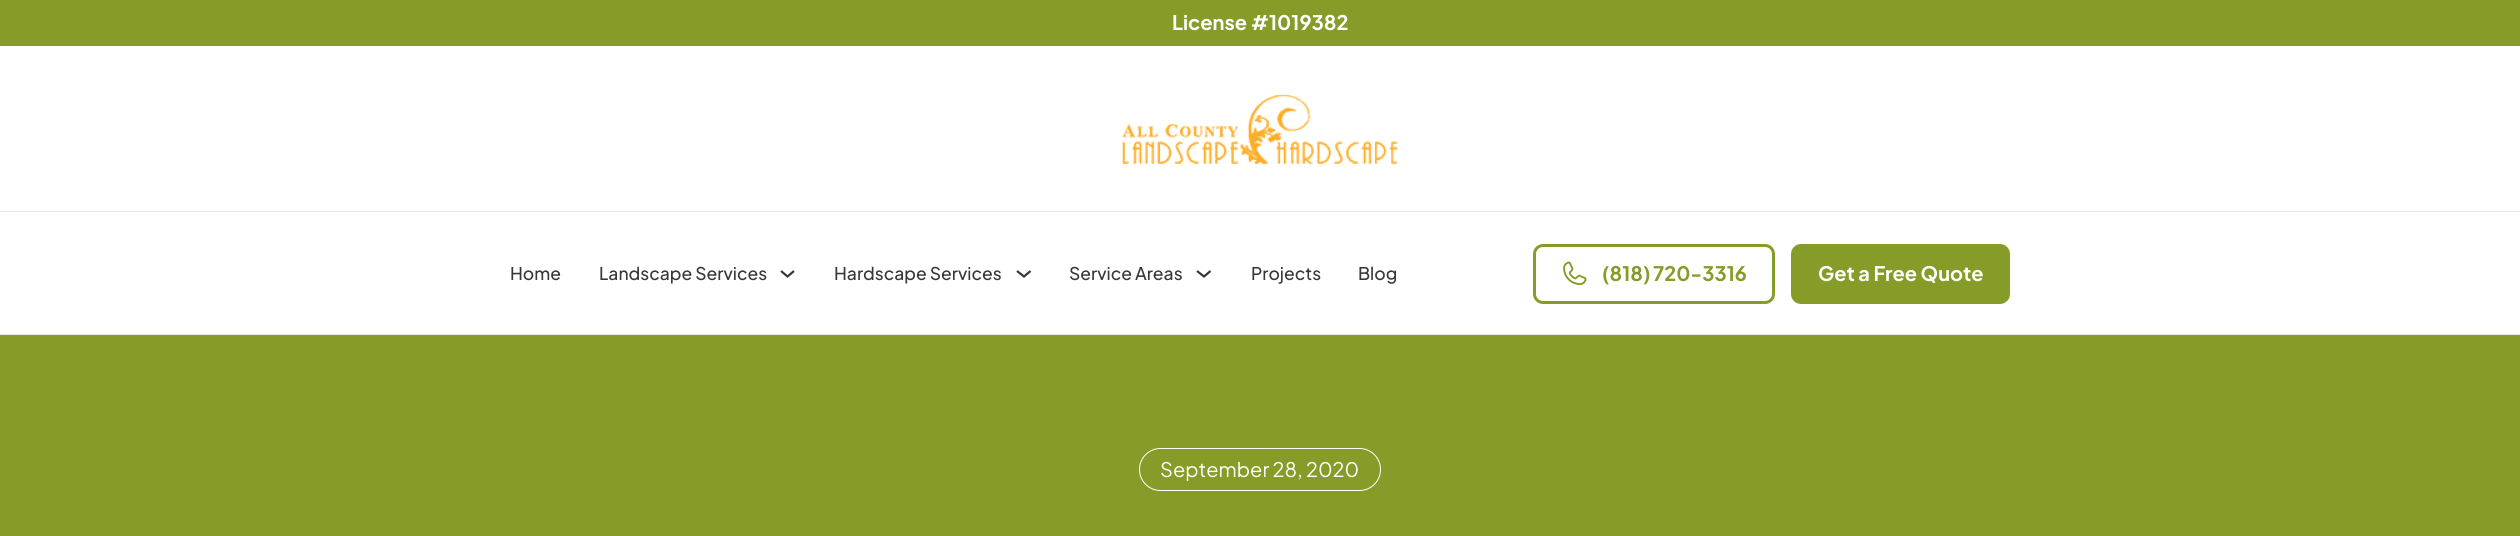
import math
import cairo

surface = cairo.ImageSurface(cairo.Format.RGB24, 2520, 536)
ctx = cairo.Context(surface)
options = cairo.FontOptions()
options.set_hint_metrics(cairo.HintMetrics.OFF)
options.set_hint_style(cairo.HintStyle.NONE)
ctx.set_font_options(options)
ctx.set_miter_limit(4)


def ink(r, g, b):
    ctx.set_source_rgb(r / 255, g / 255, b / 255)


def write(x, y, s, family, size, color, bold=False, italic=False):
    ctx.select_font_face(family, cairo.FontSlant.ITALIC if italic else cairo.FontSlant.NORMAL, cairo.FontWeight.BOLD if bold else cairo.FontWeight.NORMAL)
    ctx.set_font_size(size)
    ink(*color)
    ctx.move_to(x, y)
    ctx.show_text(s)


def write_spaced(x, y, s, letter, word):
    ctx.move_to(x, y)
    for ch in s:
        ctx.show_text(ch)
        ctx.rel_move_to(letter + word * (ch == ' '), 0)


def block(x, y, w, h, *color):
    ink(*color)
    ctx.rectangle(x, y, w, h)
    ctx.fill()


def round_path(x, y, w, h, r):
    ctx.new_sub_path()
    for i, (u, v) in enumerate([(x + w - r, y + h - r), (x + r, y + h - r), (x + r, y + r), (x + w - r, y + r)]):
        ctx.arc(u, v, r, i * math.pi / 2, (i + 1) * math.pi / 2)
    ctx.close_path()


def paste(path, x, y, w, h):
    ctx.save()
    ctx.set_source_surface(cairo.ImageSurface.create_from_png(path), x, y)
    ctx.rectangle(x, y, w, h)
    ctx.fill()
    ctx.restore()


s1 = dict(family="Plus Jakarta Sans", size=20.1, color=(255, 255, 255), bold=True)
s2 = dict(family="Plus Jakarta Sans Medium", size=17.5, color=(55, 55, 55))
s3 = dict(family="Plus Jakarta Sans", size=20, color=(255, 255, 255), bold=True)
s4 = dict(family="Plus Jakarta Sans", size=20, color=(255, 255, 255))

ink(255, 255, 255)
ctx.paint()
block(0, 0, 2520, 46, 133, 156, 40)
write(1172, 30, "License #1019382", **s1)
paste("pic1.png", 1122, 94, 276, 70)
block(0, 211, 2520, 1, 230, 230, 230)
block(0, 334, 2520, 1, 230, 230, 230)
write(510, 280, "Home", **s2)
write(599, 280, "Landscape Services", **s2)
ctx.new_path()
ctx.move_to(781, 271)
ctx.line_to(787.5, 276.5)
ctx.line_to(794, 271)
ctx.set_line_width(2.2)
ctx.stroke()
write(834, 280, "Hardscape Services", **s2)
ctx.new_path()
ctx.move_to(1017, 271)
ctx.line_to(1024, 276.5)
ctx.line_to(1030.5, 271)
ctx.stroke()
write(1069, 280, "Service Areas", **s2)
ctx.new_path()
ctx.move_to(1197, 271)
ctx.line_to(1204, 276.5)
ctx.line_to(1210.5, 271)
ctx.stroke()
write(1251, 280, "Projects", **s2)
write(1358, 280, "Blog", **s2)
round_path(1534.5, 245.5, 239, 57, 8.5)
ink(133, 156, 40)
ctx.set_line_width(3)
ctx.stroke()
paste("pic2.png", 1563, 261, 24, 24)
ctx.select_font_face("Plus Jakarta Sans", cairo.FontSlant.NORMAL, cairo.FontWeight.BOLD)
ctx.set_font_size(20)
write_spaced(1602, 281, "(818) 720-3316", 0, -1)
round_path(1792.5, 245.5, 216, 57, 8.5)
ctx.fill_preserve()
ctx.stroke()
write(1818, 281, "Get a Free Quote", **s3)
block(0, 335, 2520, 201, 133, 156, 40)
round_path(1139.5, 448.5, 241, 42, 21)
ink(255, 255, 255)
ctx.set_line_width(1)
ctx.stroke()
write(1160, 477, "September 28, 2020", **s4)
surface.write_to_png("screenshot.png")
